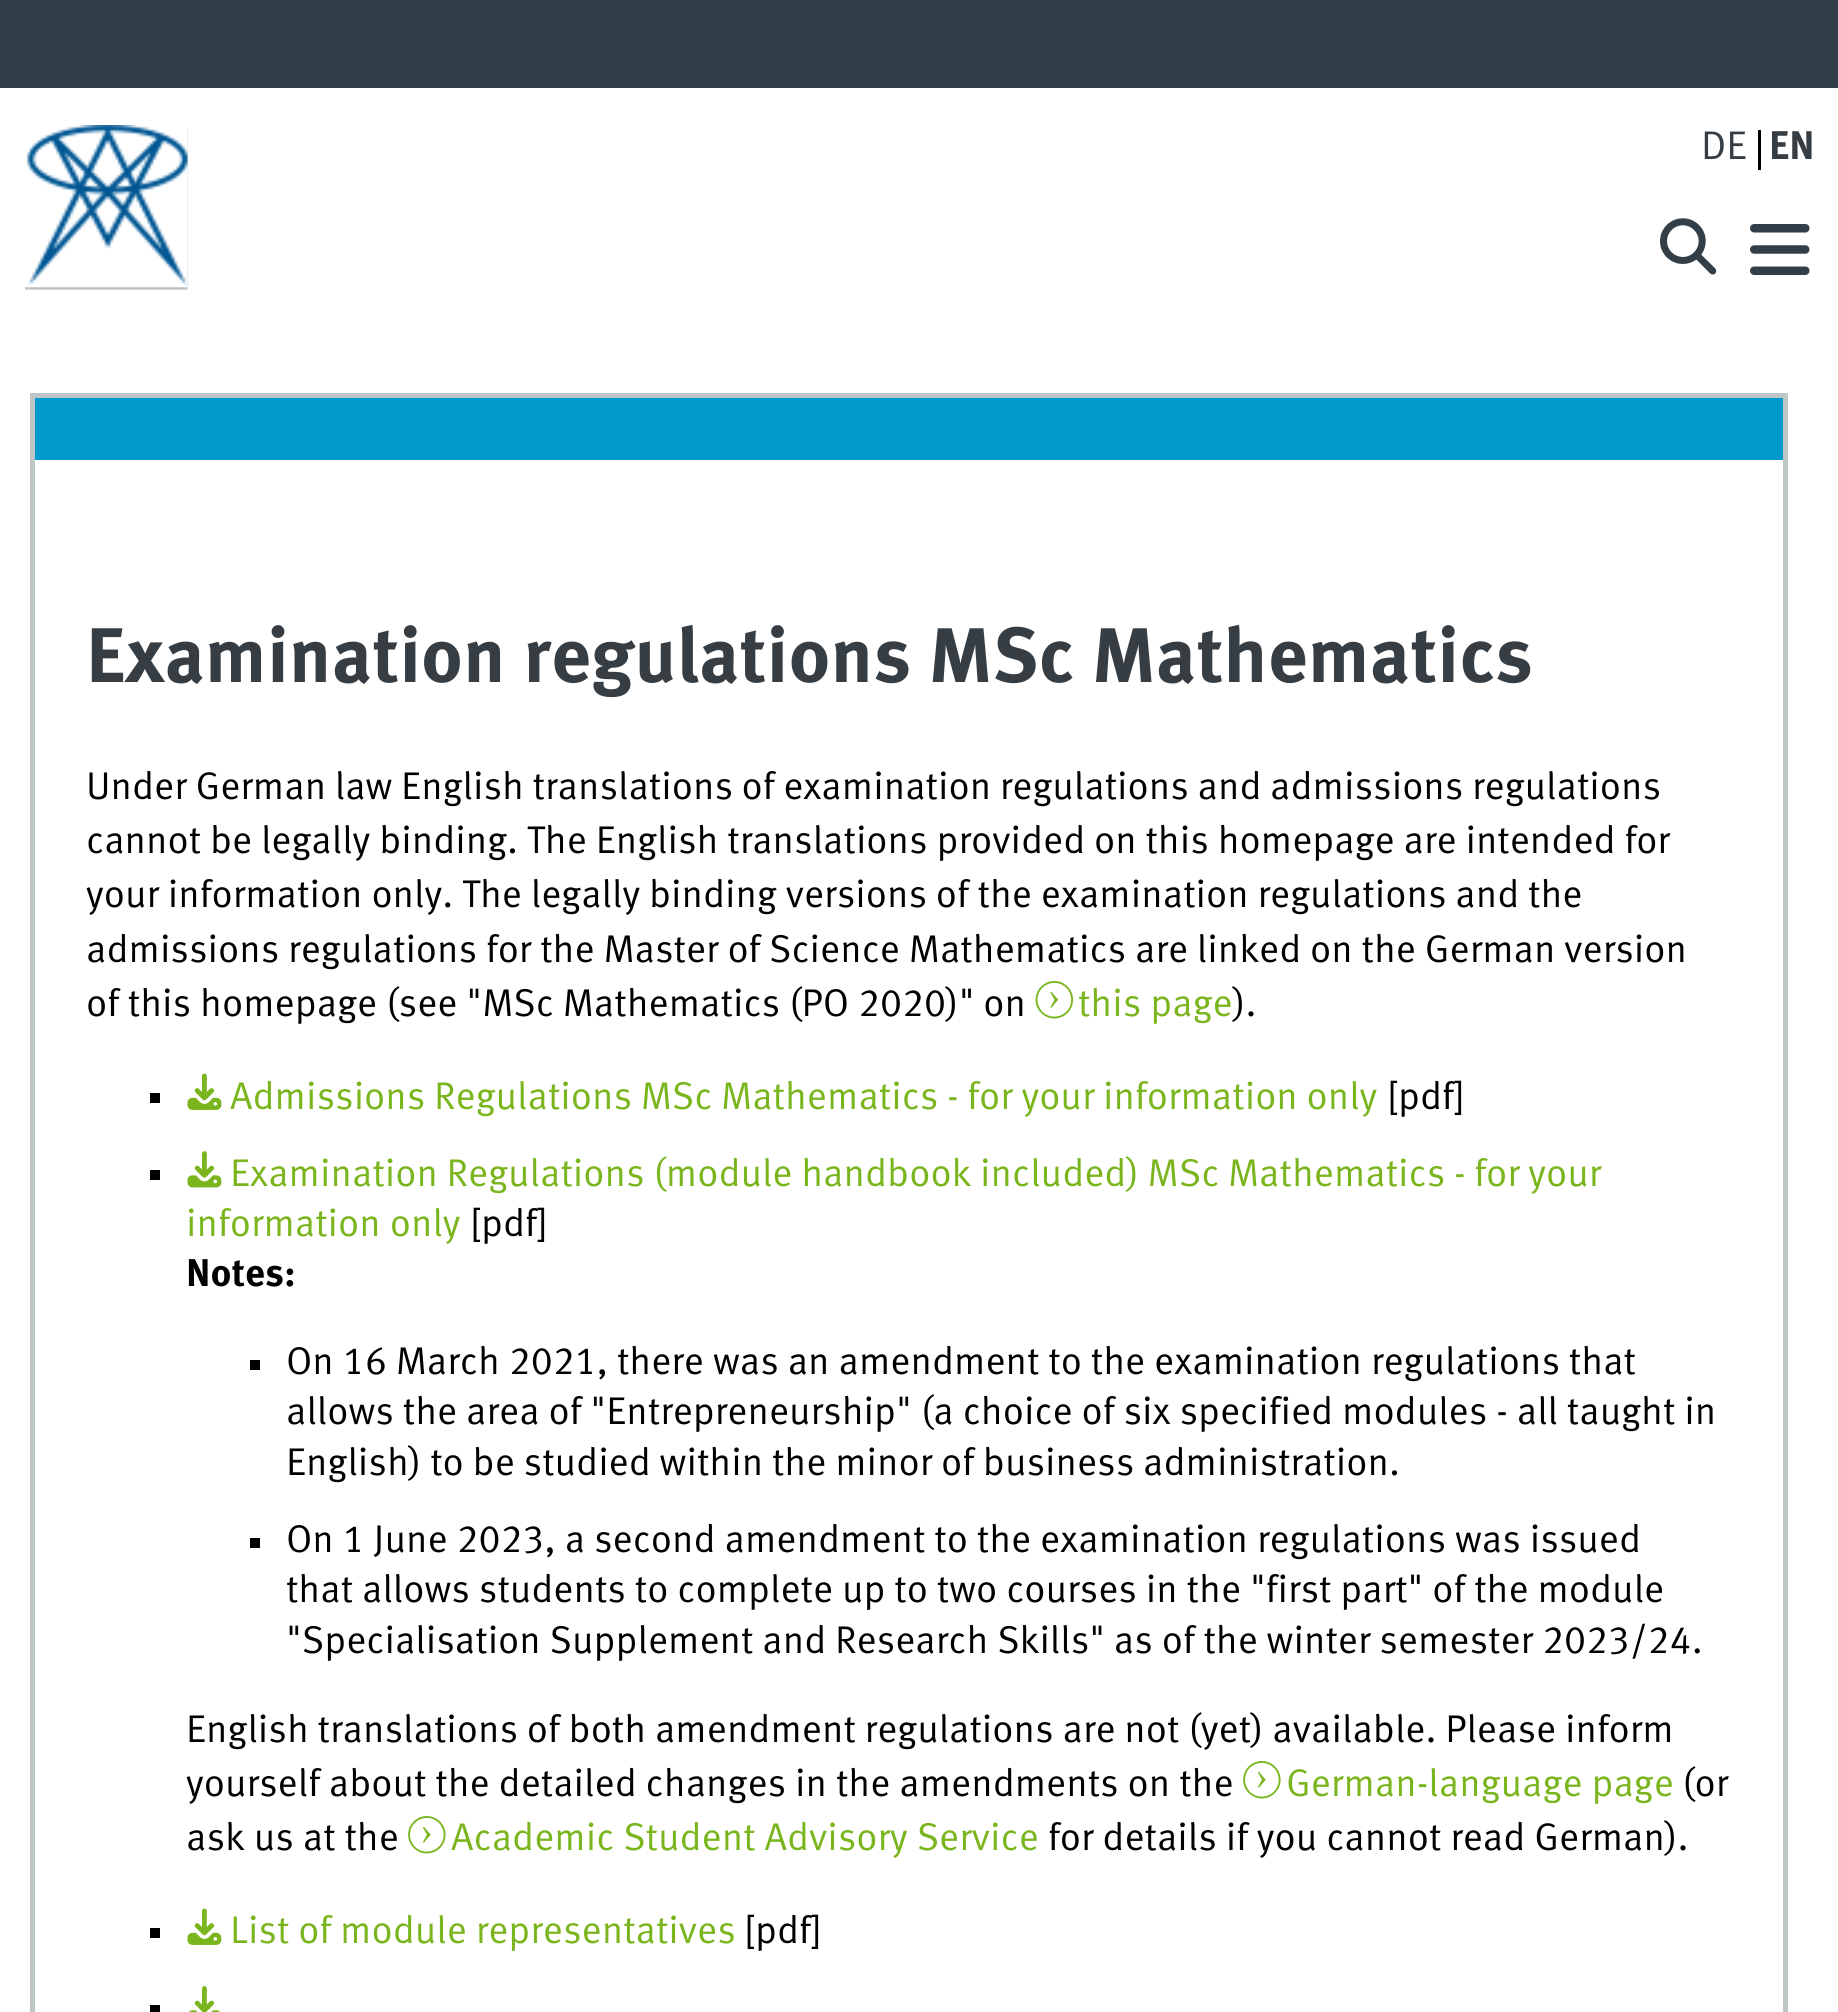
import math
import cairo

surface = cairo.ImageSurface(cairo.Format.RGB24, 1838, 2012)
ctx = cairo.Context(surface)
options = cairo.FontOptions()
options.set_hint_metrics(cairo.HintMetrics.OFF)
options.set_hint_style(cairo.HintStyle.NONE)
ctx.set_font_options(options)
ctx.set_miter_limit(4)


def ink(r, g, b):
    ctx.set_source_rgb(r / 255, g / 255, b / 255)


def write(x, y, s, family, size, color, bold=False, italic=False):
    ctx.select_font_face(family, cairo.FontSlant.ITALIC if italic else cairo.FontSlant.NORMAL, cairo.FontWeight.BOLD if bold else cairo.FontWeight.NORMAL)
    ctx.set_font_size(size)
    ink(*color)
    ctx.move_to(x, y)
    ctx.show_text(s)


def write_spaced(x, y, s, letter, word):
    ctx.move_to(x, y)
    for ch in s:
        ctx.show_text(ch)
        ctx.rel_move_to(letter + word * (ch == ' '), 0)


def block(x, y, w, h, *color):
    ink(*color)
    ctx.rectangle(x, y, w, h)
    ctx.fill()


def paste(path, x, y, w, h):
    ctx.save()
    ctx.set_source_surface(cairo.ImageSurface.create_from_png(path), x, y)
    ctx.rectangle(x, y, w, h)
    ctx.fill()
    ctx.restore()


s1 = dict(family="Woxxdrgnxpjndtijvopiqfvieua", size=40, color=(54, 61, 67))
s2 = dict(family="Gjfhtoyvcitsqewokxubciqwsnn", size=40, color=(54, 61, 67), bold=True)
s3 = dict(family="Gjfhtoyvcitsqewokxubciqwsnn", size=77.3, color=(54, 61, 67), bold=True)
s4 = dict(family="Woxxdrgnxpjndtijvopiqfvieua", size=38.65, color=(0, 0, 0))
s5 = dict(family="Woxxdrgnxpjndtijvopiqfvieua", size=38.65, color=(122, 181, 29))
s6 = dict(family="Gjfhtoyvcitsqewokxubciqwsnn", size=38.65, color=(0, 0, 0), bold=True)

ink(255, 255, 255)
ctx.paint()
block(0, 0, 1838, 88, 51, 63, 72)
paste("pic1.png", 25, 125, 163, 165)
write(1701, 159, "DE", **s1)
block(1758, 130, 3, 40, 0, 0, 0)
write(1769, 159, "EN", **s2)
paste("pic2.png", 1660, 218, 57, 57)
paste("pic3.png", 1750, 224, 60, 51)
ctx.rectangle(32.5, 395.5, 1753, 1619)
ink(190, 198, 200)
ctx.set_line_width(5)
ctx.stroke()
block(35, 398, 1748, 62, 0, 153, 204)
write(86, 682, "Examination regulations MSc Mathematics", **s3)
ctx.select_font_face("Woxxdrgnxpjndtijvopiqfvieua")
ctx.set_font_size(38.65)
ink(0, 0, 0)
write_spaced(86, 799, "Under German law English translations of examination regulations and admissions regulations", 0, -0.25)
write_spaced(86, 853, "cannot be legally binding. The English translations provided on this homepage are intended for", 0, -0.1)
write_spaced(86, 907, "your information only. The legally binding versions of the examination regulations and the", 0, -0.1)
write_spaced(86, 962, "admissions regulations for the Master of Science Mathematics are linked on the German version", 0, -0.1)
write(86, 1016, "of this homepage (see \"MSc Mathematics (PO 2020)\" on", **s4)
paste("pic4.png", 1035, 981, 39, 38)
write(1078, 1016, "this page", **s5)
write(1233, 1016, ").", **s4)
block(150, 1093, 10, 10, 0, 0, 0)
paste("pic5.png", 187, 1073, 35, 37)
ink(122, 181, 29)
write_spaced(230, 1109, "Admissions Regulations MSc Mathematics - for your information only", 0, -0.25)
write(1387, 1109, "[pdf]", **s4)
block(150, 1170, 10, 10, 0, 0, 0)
paste("pic6.png", 187, 1151, 35, 37)
ink(122, 181, 29)
write_spaced(230, 1186, "Examination Regulations (module handbook included) MSc Mathematics - for your", 0, -0.25)
write(186, 1236, "information only", **s5)
write(470, 1236, "[pdf]", **s4)
write(186, 1286, "Notes:", **s6)
block(250, 1360, 10, 10, 0, 0, 0)
write(286, 1374, "On 16 March 2021, there was an amendment to the examination regulations that", **s4)
write(286, 1424, "allows the area of \"Entrepreneurship\" (a choice of six specified modules - all taught in", **s4)
write_spaced(286, 1475, "English) to be studied within the minor of business administration.", 0, -0.1)
block(250, 1538, 10, 10, 0, 0, 0)
write(286, 1552, "On 1 June 2023, a second amendment to the examination regulations was issued", **s4)
write(286, 1602, "that allows students to complete up to two courses in the \"first part\" of the module", **s4)
write_spaced(286, 1653, "\"Specialisation Supplement and Research Skills\" as of the winter semester 2023/24.", 0, -0.1)
write_spaced(186, 1742, "English translations of both amendment regulations are not (yet) available. Please inform", 0, -0.1)
write(186, 1796, "yourself about the detailed changes in the amendments on the", **s4)
paste("pic7.png", 1243, 1761, 38, 38)
write(1286, 1796, "German-language page", **s5)
write(1682, 1796, "(or", **s4)
write(186, 1850, "ask us at the", **s4)
paste("pic7.png", 408, 1816, 38, 38)
write(451, 1850, "Academic Student Advisory Service", **s5)
write(1048, 1850, "for details if you cannot read German).", **s4)
block(150, 1928, 10, 10, 0, 0, 0)
paste("pic5.png", 187, 1908, 35, 37)
write(230, 1943, "List of module representatives", **s5)
write(744, 1943, "[pdf]", **s4)
block(150, 2005, 10, 7, 0, 0, 0)
paste("pic8.png", 188, 1986, 32, 26)
surface.write_to_png("screenshot.png")
